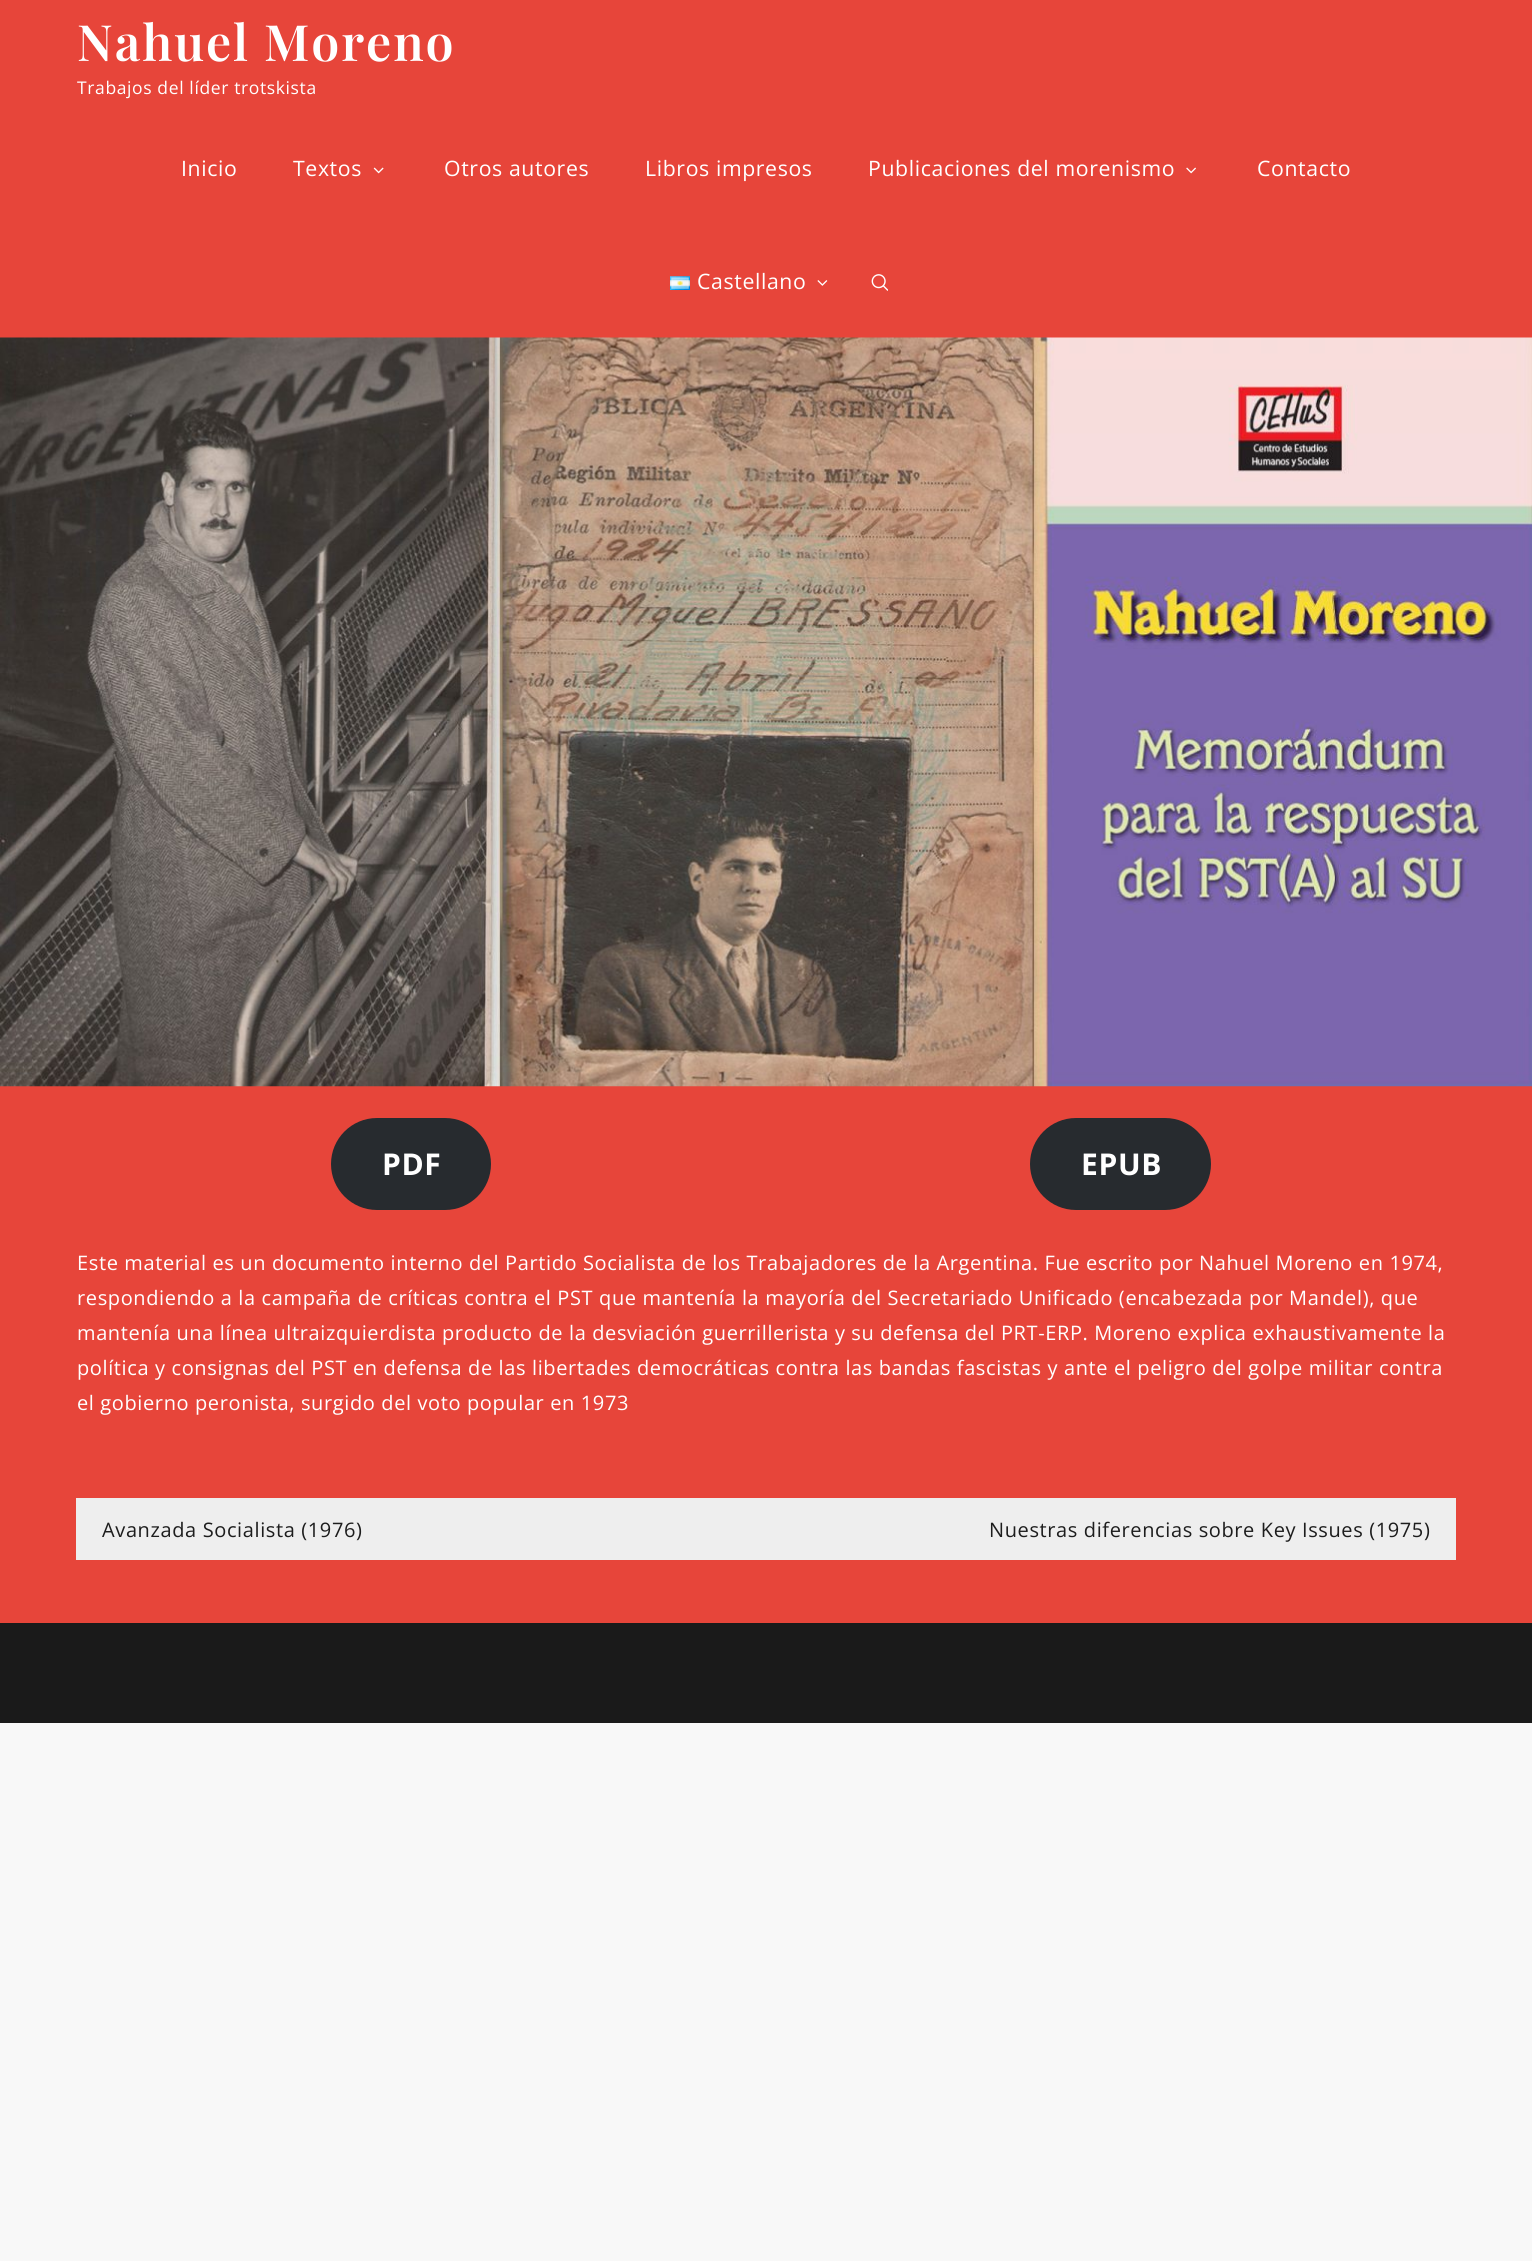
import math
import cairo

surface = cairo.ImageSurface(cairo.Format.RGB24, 1532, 2261)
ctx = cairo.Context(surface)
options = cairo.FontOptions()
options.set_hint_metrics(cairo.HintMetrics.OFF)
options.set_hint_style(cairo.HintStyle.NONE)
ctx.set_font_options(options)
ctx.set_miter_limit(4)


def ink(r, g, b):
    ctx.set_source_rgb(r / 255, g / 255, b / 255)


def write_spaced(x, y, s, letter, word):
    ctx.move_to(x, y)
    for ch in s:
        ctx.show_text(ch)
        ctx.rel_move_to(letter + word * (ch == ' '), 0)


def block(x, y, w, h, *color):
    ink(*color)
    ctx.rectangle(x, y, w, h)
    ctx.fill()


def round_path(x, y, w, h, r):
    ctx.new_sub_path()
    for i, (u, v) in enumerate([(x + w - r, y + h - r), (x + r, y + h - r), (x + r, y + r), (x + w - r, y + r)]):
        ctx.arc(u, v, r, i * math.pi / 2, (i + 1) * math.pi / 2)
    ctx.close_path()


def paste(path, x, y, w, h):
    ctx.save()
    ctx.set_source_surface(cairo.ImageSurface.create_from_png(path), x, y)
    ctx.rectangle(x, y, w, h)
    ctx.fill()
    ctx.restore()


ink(248, 248, 248)
ctx.paint()
block(0, 0, 1532, 1623, 231, 69, 58)
ctx.select_font_face("Playfair Display SemiBold")
ctx.set_font_size(50)
ink(255, 255, 255)
write_spaced(77, 61, "Nahuel Moreno", 1.9, 0)
ctx.select_font_face("Open Sans")
ctx.set_font_size(17.5)
write_spaced(77, 94, "Trabajos del líder trotskista", 0.62, 0)
ctx.set_font_size(21.25)
write_spaced(181, 176, "Inicio", 0.62, 0)
write_spaced(293, 176, "Textos", 0.62, 0)
paste("pic1.png", 373, 167, 11, 7)
write_spaced(444, 176, "Otros autores", 0.62, 0)
write_spaced(645, 176, "Libros impresos", 0.62, 0)
write_spaced(868, 176, "Publicaciones del morenismo", 0.62, 0)
paste("pic2.png", 1186, 167, 10, 7)
write_spaced(1257, 176, "Contacto", 0.62, 0)
paste("pic3.png", 670, 276, 20, 14)
write_spaced(697, 289, "Castellano", 0.62, 0)
paste("pic4.png", 817, 280, 11, 6)
paste("pic5.png", 871, 274, 17, 17)
paste("pic6.png", 0, 337, 1532, 750)
ink(39, 43, 47)
round_path(331, 1118, 160, 92, 46)
ctx.fill()
ctx.select_font_face("Open Sans", cairo.FontSlant.NORMAL, cairo.FontWeight.BOLD)
ctx.set_font_size(30)
ink(255, 255, 255)
write_spaced(382, 1175, "PDF", 0.62, 0)
ink(39, 43, 47)
round_path(1030, 1118, 181, 92, 46)
ctx.fill()
ink(255, 255, 255)
write_spaced(1081, 1175, "EPUB", 0.62, 0)
ctx.select_font_face("Open Sans")
ctx.set_font_size(20)
write_spaced(77, 1270, "Este material es un documento interno del Partido Socialista de los Trabajadores de la Argentina. Fue escrito por Nahuel Moreno en 1974,", 0.62, 0)
write_spaced(77, 1305, "respondiendo a la campaña de críticas contra el PST que mantenía la mayoría del Secretariado Unificado (encabezada por Mandel), que", 0.62, 0)
write_spaced(77, 1340, "mantenía una línea ultraizquierdista producto de la desviación guerrillerista y su defensa del PRT-ERP. Moreno explica exhaustivamente la", 0.62, 0)
write_spaced(77, 1375, "política y consignas del PST en defensa de las libertades democráticas contra las bandas fascistas y ante el peligro del golpe militar contra", 0.62, 0)
write_spaced(77, 1410, "el gobierno peronista, surgido del voto popular en 1973", 0.62, 0)
block(76, 1498, 1380, 62, 238, 238, 238)
ink(29, 29, 29)
write_spaced(102, 1537, "Avanzada Socialista (1976)", 0.62, 0)
write_spaced(989, 1537, "Nuestras diferencias sobre Key Issues (1975)", 0.62, 0)
block(0, 1623, 1532, 100, 26, 26, 26)
surface.write_to_png("screenshot.png")
